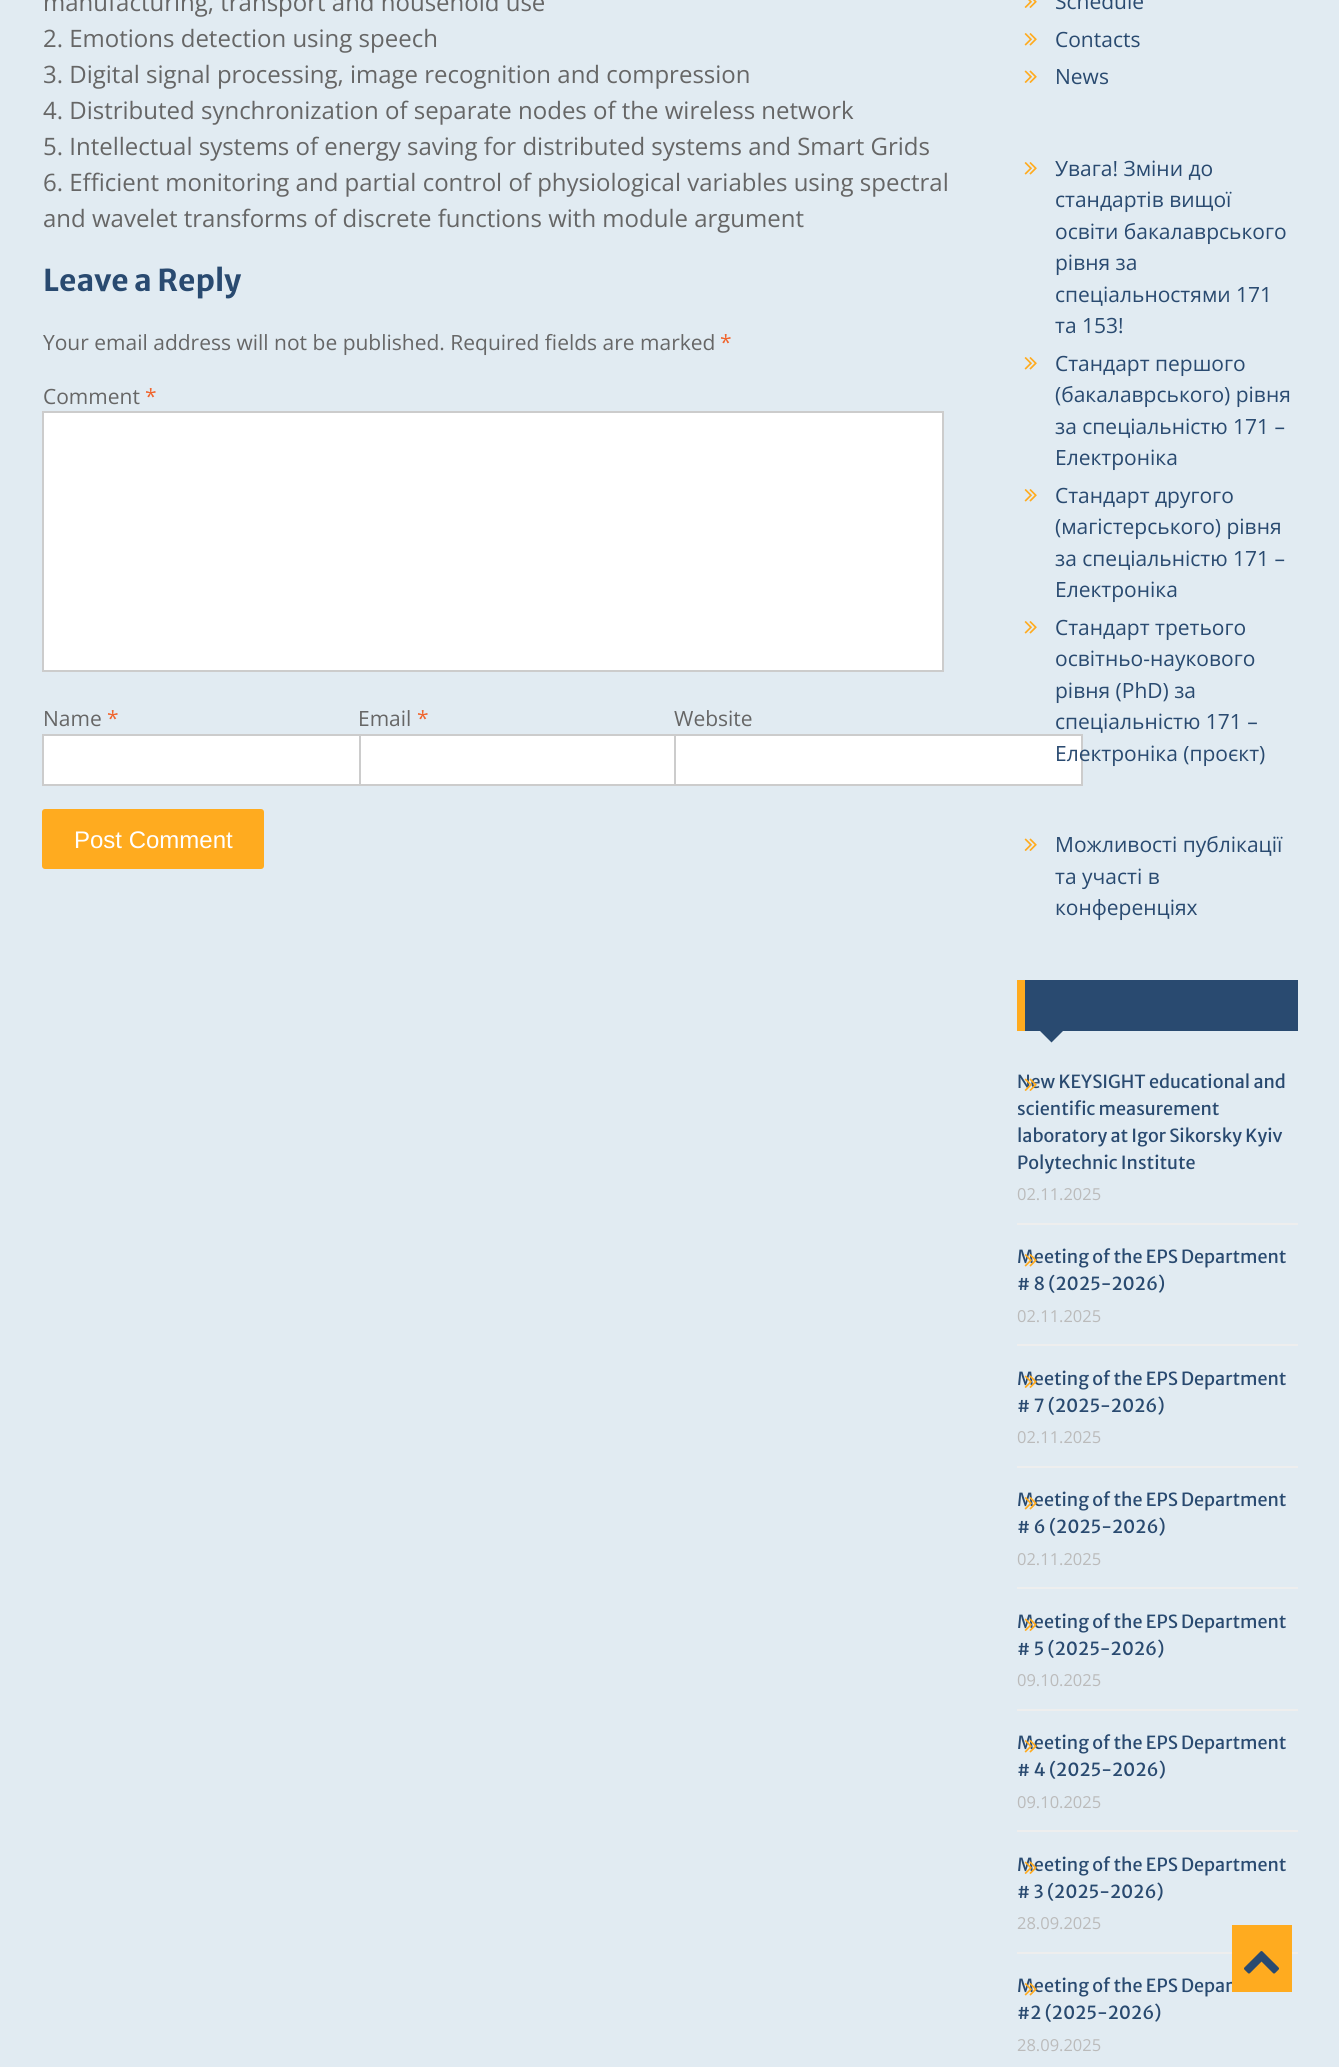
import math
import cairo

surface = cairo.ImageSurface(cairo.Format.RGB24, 1339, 2067)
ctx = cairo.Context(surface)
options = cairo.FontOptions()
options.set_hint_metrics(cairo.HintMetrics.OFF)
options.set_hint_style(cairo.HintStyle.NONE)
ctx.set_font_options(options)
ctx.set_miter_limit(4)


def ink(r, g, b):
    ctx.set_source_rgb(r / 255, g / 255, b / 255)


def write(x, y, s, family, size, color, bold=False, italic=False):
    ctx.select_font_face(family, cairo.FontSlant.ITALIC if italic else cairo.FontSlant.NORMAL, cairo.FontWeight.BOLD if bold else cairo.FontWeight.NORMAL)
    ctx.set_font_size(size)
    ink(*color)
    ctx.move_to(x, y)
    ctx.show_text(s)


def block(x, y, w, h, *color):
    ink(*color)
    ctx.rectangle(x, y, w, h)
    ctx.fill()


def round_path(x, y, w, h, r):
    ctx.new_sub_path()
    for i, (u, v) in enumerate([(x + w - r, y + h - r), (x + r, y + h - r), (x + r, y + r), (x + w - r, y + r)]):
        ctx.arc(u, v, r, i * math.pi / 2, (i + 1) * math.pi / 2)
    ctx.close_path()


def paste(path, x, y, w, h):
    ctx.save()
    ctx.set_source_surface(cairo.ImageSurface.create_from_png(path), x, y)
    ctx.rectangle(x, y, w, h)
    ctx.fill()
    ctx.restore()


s1 = dict(family="Open Sans", size=24, color=(102, 102, 102))
s2 = dict(family="Merriweather Sans", size=30, color=(41, 74, 112), bold=True)
s3 = dict(family="Open Sans", size=21, color=(102, 102, 102))
s4 = dict(family="Open Sans", size=21, color=(240, 99, 43))
s5 = dict(family="Liberation Sans", size=24, color=(255, 255, 255))
s6 = dict(family="Open Sans", size=21, color=(41, 74, 112))
s7 = dict(family="Merriweather Sans", size=18, color=(41, 74, 112))
s8 = dict(family="Open Sans", size=16.5, color=(187, 187, 187))

ink(225, 235, 242)
ctx.paint()
write(43, 11, "manufacturing, transport and household use", **s1)
write(43, 47, "2. Emotions detection using speech", **s1)
write(43, 83, "3. Digital signal processing, image recognition and compression", **s1)
write(43, 119, "4. Distributed synchronization of separate nodes of the wireless network", **s1)
write(43, 155, "5. Intellectual systems of energy saving for distributed systems and Smart Grids", **s1)
write(43, 191, "6. Efficient monitoring and partial control of physiological variables using spectral", **s1)
write(43, 227, "and wavelet transforms of discrete functions with module argument", **s1)
write(43, 291, "Leave a Reply", **s2)
write(43, 350, "Your email address will not be published. Required fields are marked", **s3)
write(720, 350, "*", **s4)
write(43, 404, "Comment", **s3)
write(145, 404, "*", **s4)
ink(255, 255, 255)
ctx.rectangle(43, 412, 900, 259)
ctx.fill_preserve()
ink(204, 204, 204)
ctx.stroke()
write(43, 726, "Name", **s3)
write(107, 726, "*", **s4)
block(44, 736, 315, 48, 255, 255, 255)
ctx.rectangle(43, 735, 408, 50)
ink(204, 204, 204)
ctx.stroke()
write(358, 726, "Email", **s3)
write(417, 726, "*", **s4)
block(361, 736, 313, 48, 255, 255, 255)
ctx.rectangle(360, 735, 407, 50)
ink(204, 204, 204)
ctx.stroke()
write(674, 726, "Website", **s3)
ink(255, 255, 255)
ctx.rectangle(675, 735, 407, 50)
ctx.fill_preserve()
ink(204, 204, 204)
ctx.stroke()
ink(255, 171, 31)
round_path(42, 809, 222, 60, 3)
ctx.fill()
write(74, 848, "Post Comment", **s5)
paste("pic1.png", 1024, 0, 13, 8)
write(1055, 9, "Schedule", **s6)
paste("pic2.png", 1024, 33, 13, 13)
write(1055, 47, "Contacts", **s6)
paste("pic3.png", 1024, 70, 13, 13)
write(1055, 84, "News", **s6)
paste("pic2.png", 1024, 162, 13, 13)
write(1055, 176, "Увага! Зміни до", **s6)
write(1055, 207, "стандартів вищої", **s6)
write(1055, 239, "освіти бакалаврського", **s6)
write(1055, 270, "рівня за", **s6)
write(1055, 302, "спеціальностями 171", **s6)
write(1055, 333, "та 153!", **s6)
paste("pic2.png", 1024, 357, 13, 13)
write(1055, 371, "Стандарт першого", **s6)
write(1055, 402, "(бакалаврського) рівня", **s6)
write(1055, 434, "за спеціальністю 171 –", **s6)
write(1055, 465, "Електроніка", **s6)
paste("pic2.png", 1024, 489, 13, 13)
write(1055, 503, "Стандарт другого", **s6)
write(1055, 534, "(магістерського) рівня", **s6)
write(1055, 566, "за спеціальністю 171 –", **s6)
write(1055, 597, "Електроніка", **s6)
paste("pic2.png", 1024, 621, 13, 13)
write(1055, 635, "Стандарт третього", **s6)
write(1055, 666, "освітньо-наукового", **s6)
write(1055, 698, "рівня (PhD) за", **s6)
write(1055, 729, "спеціальністю 171 –", **s6)
write(1055, 761, "Електроніка (проєкт)", **s6)
paste("pic3.png", 1024, 838, 13, 13)
write(1055, 852, "Можливості публікації", **s6)
write(1055, 884, "та участі в", **s6)
write(1055, 915, "конференціях", **s6)
block(1025, 980, 273, 51, 41, 74, 112)
block(1017, 980, 8, 51, 255, 171, 31)
ink(41, 74, 112)
ctx.new_path()
ctx.move_to(1038, 1029)
ctx.line_to(1065, 1029)
ctx.line_to(1051.5, 1042.5)
ctx.close_path()
ctx.fill()
block(1017, 1223, 281, 2, 238, 238, 238)
write(1017, 1088, "New KEYSIGHT educational and", **s7)
write(1017, 1115, "scientific measurement", **s7)
write(1017, 1142, "laboratory at Igor Sikorsky Kyiv", **s7)
write(1017, 1169, "Polytechnic Institute", **s7)
paste("pic4.png", 1024, 1078, 13, 13)
write(1017, 1200, "02.11.2025", **s8)
block(1017, 1344, 281, 2, 238, 238, 238)
write(1017, 1263, "Meeting of the EPS Department", **s7)
write(1017, 1290, "# 8 (2025-2026)", **s7)
paste("pic5.png", 1024, 1254, 13, 13)
write(1017, 1322, "02.11.2025", **s8)
block(1017, 1466, 281, 2, 238, 238, 238)
write(1017, 1385, "Meeting of the EPS Department", **s7)
write(1017, 1412, "# 7 (2025-2026)", **s7)
paste("pic6.png", 1024, 1375, 13, 13)
write(1017, 1443, "02.11.2025", **s8)
block(1017, 1587, 281, 2, 238, 238, 238)
write(1017, 1506, "Meeting of the EPS Department", **s7)
write(1017, 1533, "# 6 (2025-2026)", **s7)
paste("pic5.png", 1024, 1497, 13, 13)
write(1017, 1565, "02.11.2025", **s8)
block(1017, 1709, 281, 2, 238, 238, 238)
write(1017, 1628, "Meeting of the EPS Department", **s7)
write(1017, 1655, "# 5 (2025-2026)", **s7)
paste("pic6.png", 1024, 1618, 13, 13)
write(1017, 1686, "09.10.2025", **s8)
block(1017, 1830, 281, 2, 238, 238, 238)
write(1017, 1749, "Meeting of the EPS Department", **s7)
write(1017, 1776, "# 4 (2025-2026)", **s7)
paste("pic5.png", 1024, 1740, 13, 13)
write(1017, 1808, "09.10.2025", **s8)
block(1017, 1952, 281, 2, 238, 238, 238)
write(1017, 1871, "Meeting of the EPS Department", **s7)
write(1017, 1898, "# 3 (2025-2026)", **s7)
paste("pic6.png", 1024, 1861, 13, 13)
write(1017, 1929, "28.09.2025", **s8)
write(1017, 1992, "Meeting of the EPS Depar", **s7)
write(1017, 2019, "#2 (2025-2026)", **s7)
paste("pic5.png", 1024, 1983, 13, 13)
write(1017, 2051, "28.09.2025", **s8)
block(1232, 1925, 60, 67, 255, 171, 31)
paste("pic7.png", 1244, 1951, 35, 23)
surface.write_to_png("screenshot.png")
